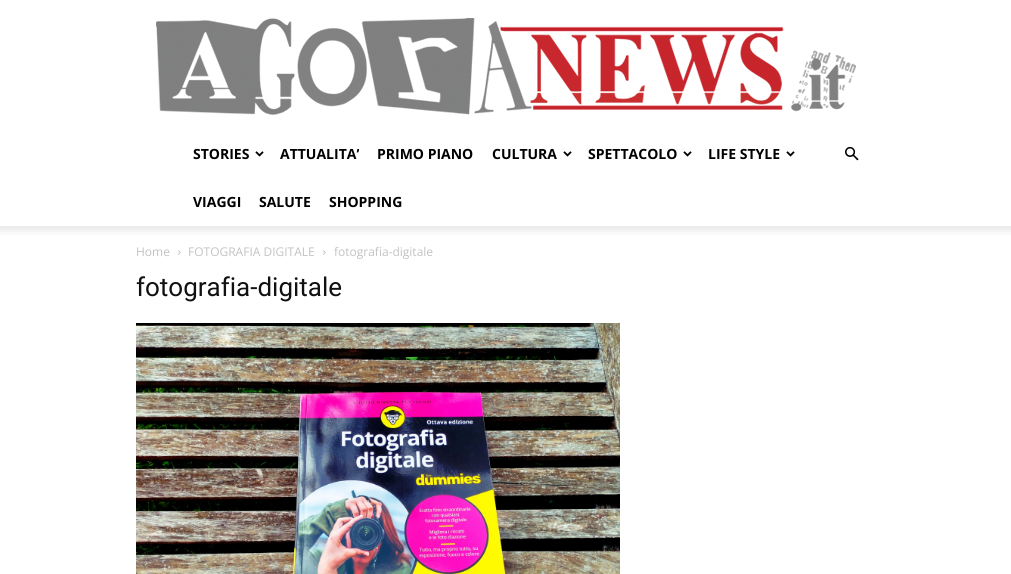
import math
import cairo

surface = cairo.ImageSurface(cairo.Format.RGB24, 1011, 574)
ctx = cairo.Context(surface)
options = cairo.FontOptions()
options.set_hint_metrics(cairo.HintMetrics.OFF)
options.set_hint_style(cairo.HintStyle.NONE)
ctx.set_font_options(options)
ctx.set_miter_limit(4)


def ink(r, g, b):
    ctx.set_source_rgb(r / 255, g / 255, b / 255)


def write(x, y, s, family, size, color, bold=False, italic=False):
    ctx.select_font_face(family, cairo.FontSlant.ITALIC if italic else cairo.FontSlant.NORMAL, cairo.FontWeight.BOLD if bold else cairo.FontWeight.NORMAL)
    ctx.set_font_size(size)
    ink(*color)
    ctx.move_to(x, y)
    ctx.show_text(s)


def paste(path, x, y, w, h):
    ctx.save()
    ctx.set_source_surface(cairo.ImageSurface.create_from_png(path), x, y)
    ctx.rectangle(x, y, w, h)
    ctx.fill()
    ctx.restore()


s1 = dict(family="Open Sans", size=14, color=(0, 0, 0), bold=True)
s2 = dict(family="Open Sans", size=12, color=(195, 195, 195))
s3 = dict(family="Roboto", size=26, color=(17, 17, 17))

ink(255, 255, 255)
ctx.paint()
paste("pic1.png", 156, 18, 700, 97)
write(193, 159, "STORIES", **s1)
paste("pic2.png", 255, 151, 9, 6)
write(280, 159, "ATTUALITA’", **s1)
write(377, 159, "PRIMO PIANO", **s1)
write(492, 159, "CULTURA", **s1)
paste("pic2.png", 563, 151, 9, 6)
write(588, 159, "SPETTACOLO", **s1)
paste("pic2.png", 683, 151, 9, 6)
write(708, 159, "LIFE STYLE", **s1)
paste("pic2.png", 786, 151, 9, 6)
write(193, 207, "VIAGGI", **s1)
write(259, 207, "SALUTE", **s1)
write(329, 207, "SHOPPING", **s1)
paste("pic3.png", 845, 146, 14, 15)
paste("pic4.png", 0, 226, 1011, 9)
write(136, 256, "Home", **s2)
paste("pic5.png", 178, 250, 3, 5)
write(188, 256, "FOTOGRAFIA DIGITALE", **s2)
paste("pic5.png", 323, 250, 3, 5)
write(334, 256, "fotografia-digitale", **s2)
write(136, 296, "fotografia-digitale", **s3)
paste("pic6.png", 136, 323, 484, 251)
surface.write_to_png("screenshot.png")
